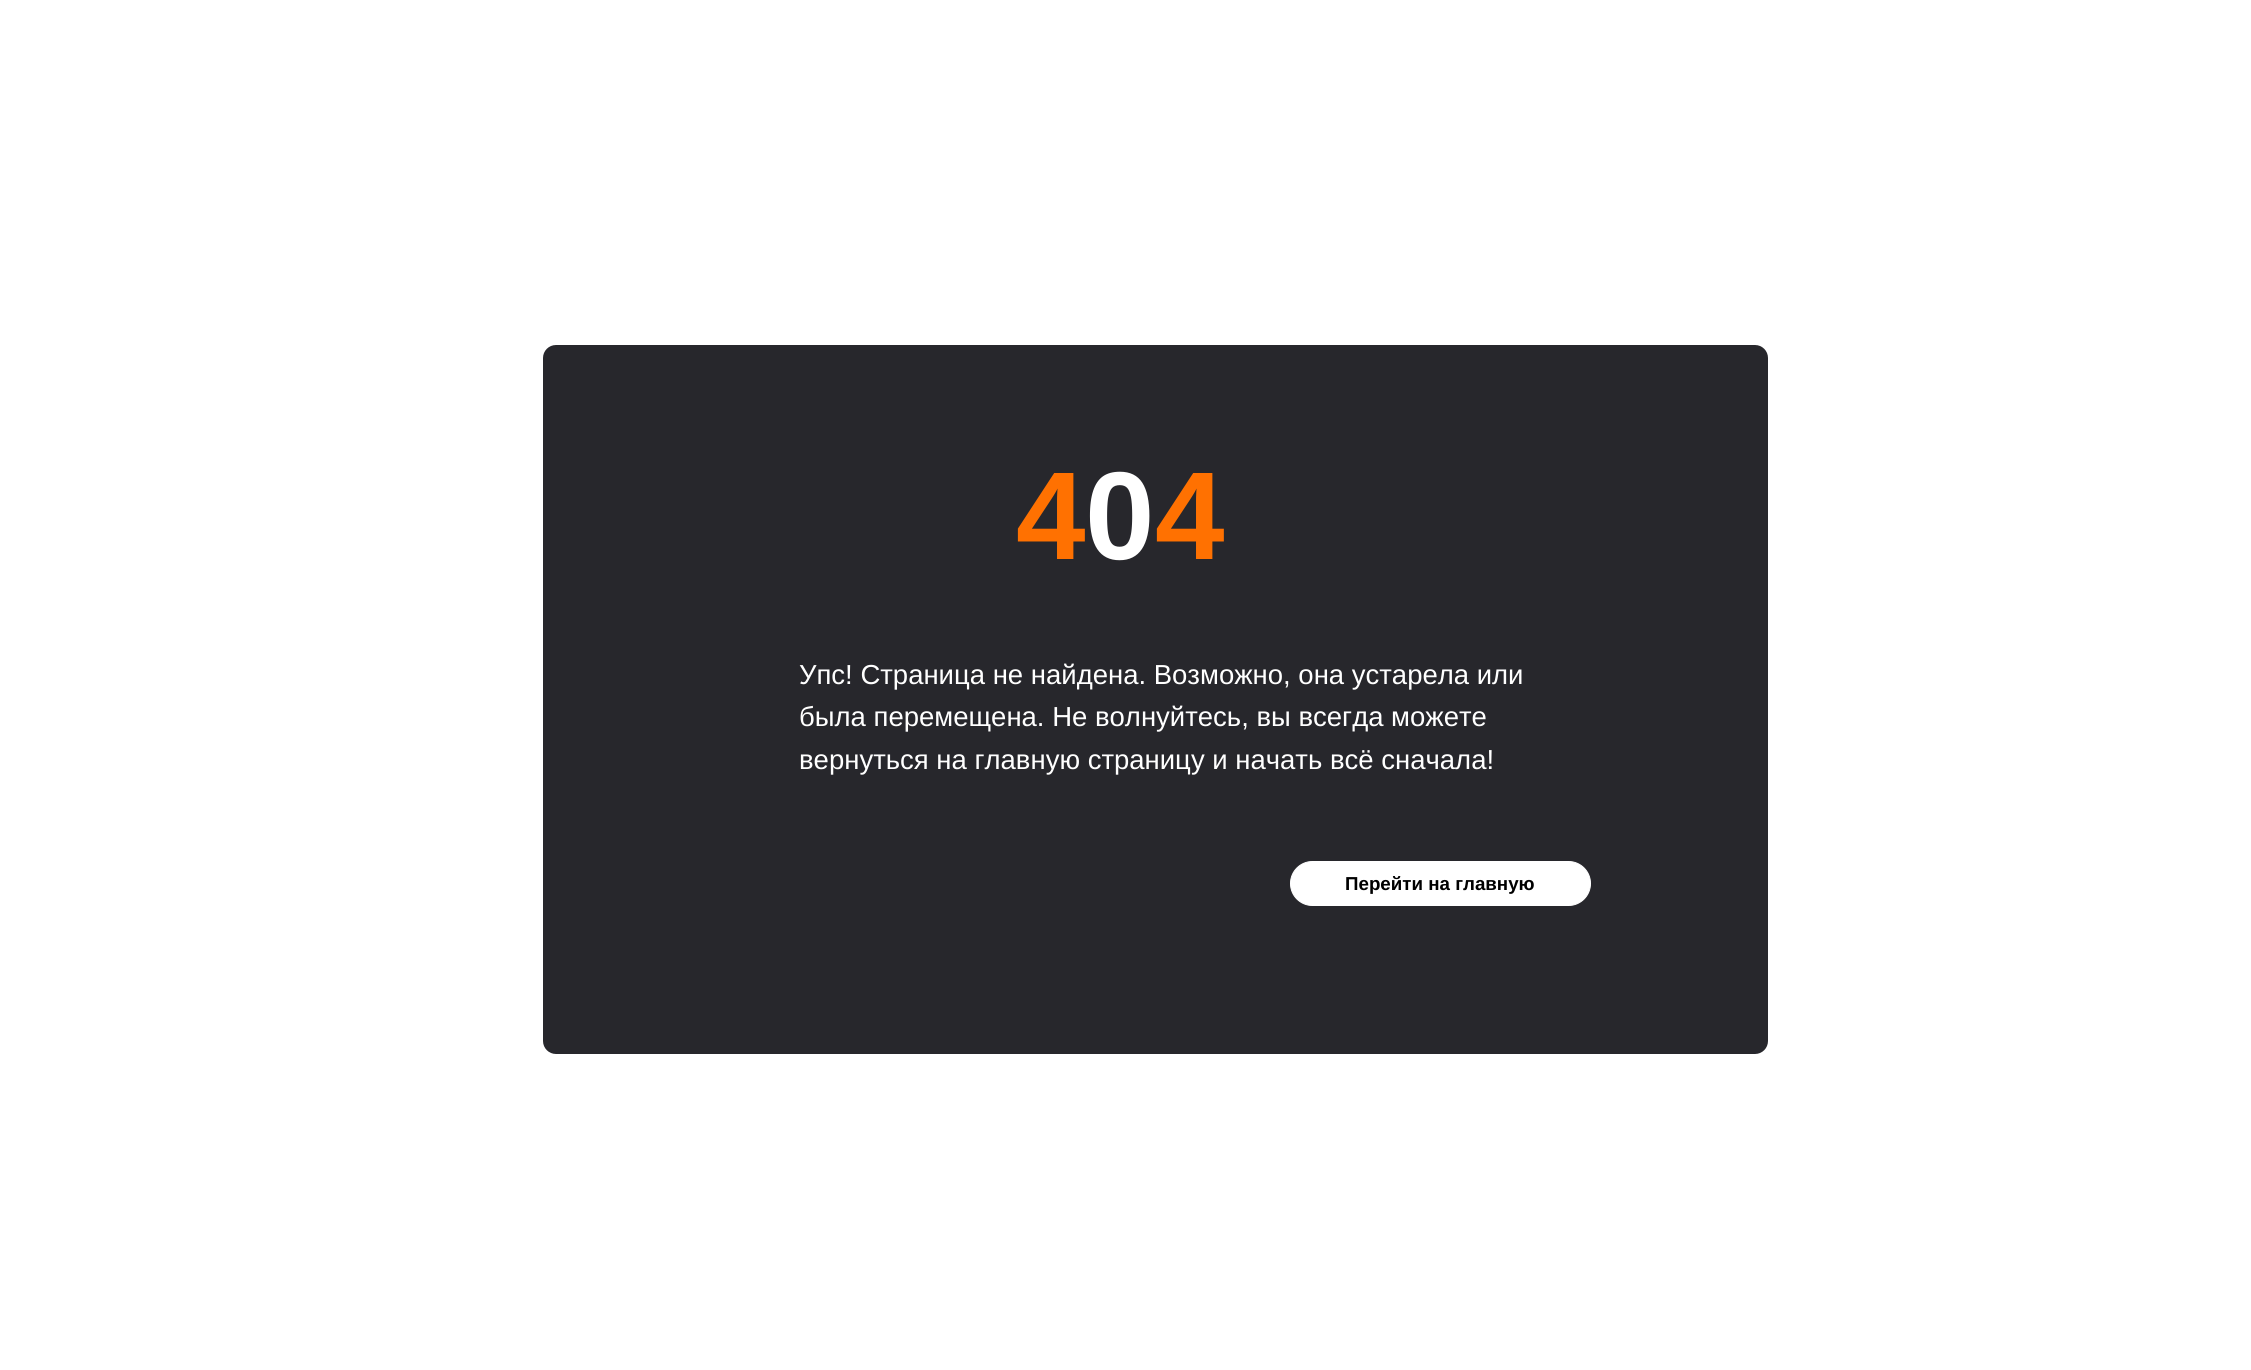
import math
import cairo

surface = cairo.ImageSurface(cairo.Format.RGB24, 2251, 1370)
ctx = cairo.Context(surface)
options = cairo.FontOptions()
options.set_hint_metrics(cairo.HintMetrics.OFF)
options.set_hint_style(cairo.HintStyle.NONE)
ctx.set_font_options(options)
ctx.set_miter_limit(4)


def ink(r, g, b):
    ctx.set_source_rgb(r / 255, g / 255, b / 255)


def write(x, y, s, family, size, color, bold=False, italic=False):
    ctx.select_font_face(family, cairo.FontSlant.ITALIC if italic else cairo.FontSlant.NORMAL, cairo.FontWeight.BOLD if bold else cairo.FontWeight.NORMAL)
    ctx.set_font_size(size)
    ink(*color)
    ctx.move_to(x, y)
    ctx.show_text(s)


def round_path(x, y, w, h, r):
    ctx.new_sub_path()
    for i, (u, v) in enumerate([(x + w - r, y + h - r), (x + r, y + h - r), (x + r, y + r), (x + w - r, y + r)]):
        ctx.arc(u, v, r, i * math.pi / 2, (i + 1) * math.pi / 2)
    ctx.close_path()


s1 = dict(family="Liberation Sans", size=125, color=(255, 113, 1), bold=True)
s2 = dict(family="Liberation Sans", size=125, color=(255, 255, 255), bold=True)
s3 = dict(family="Liberation Sans", size=27.5, color=(255, 255, 255))
s4 = dict(family="Liberation Sans", size=18.75, color=(0, 0, 0), bold=True)

ink(255, 255, 255)
ctx.paint()
ink(39, 39, 44)
round_path(543, 345, 1225, 709, 13)
ctx.fill()
write(1016, 559, "4", **s1)
write(1085, 559, "0", **s2)
write(1155, 559, "4", **s1)
write(799, 684, "Упс! Страница не найдена. Возможно, она устарела или", **s3)
write(799, 726, "была перемещена. Не волнуйтесь, вы всегда можете", **s3)
write(799, 769, "вернуться на главную страницу и начать всё сначала!", **s3)
round_path(1290.5, 861.5, 300, 44, 22)
ctx.fill_preserve()
ctx.set_line_width(1)
ctx.stroke()
write(1345, 890, "Перейти на главную", **s4)
surface.write_to_png("screenshot.png")
